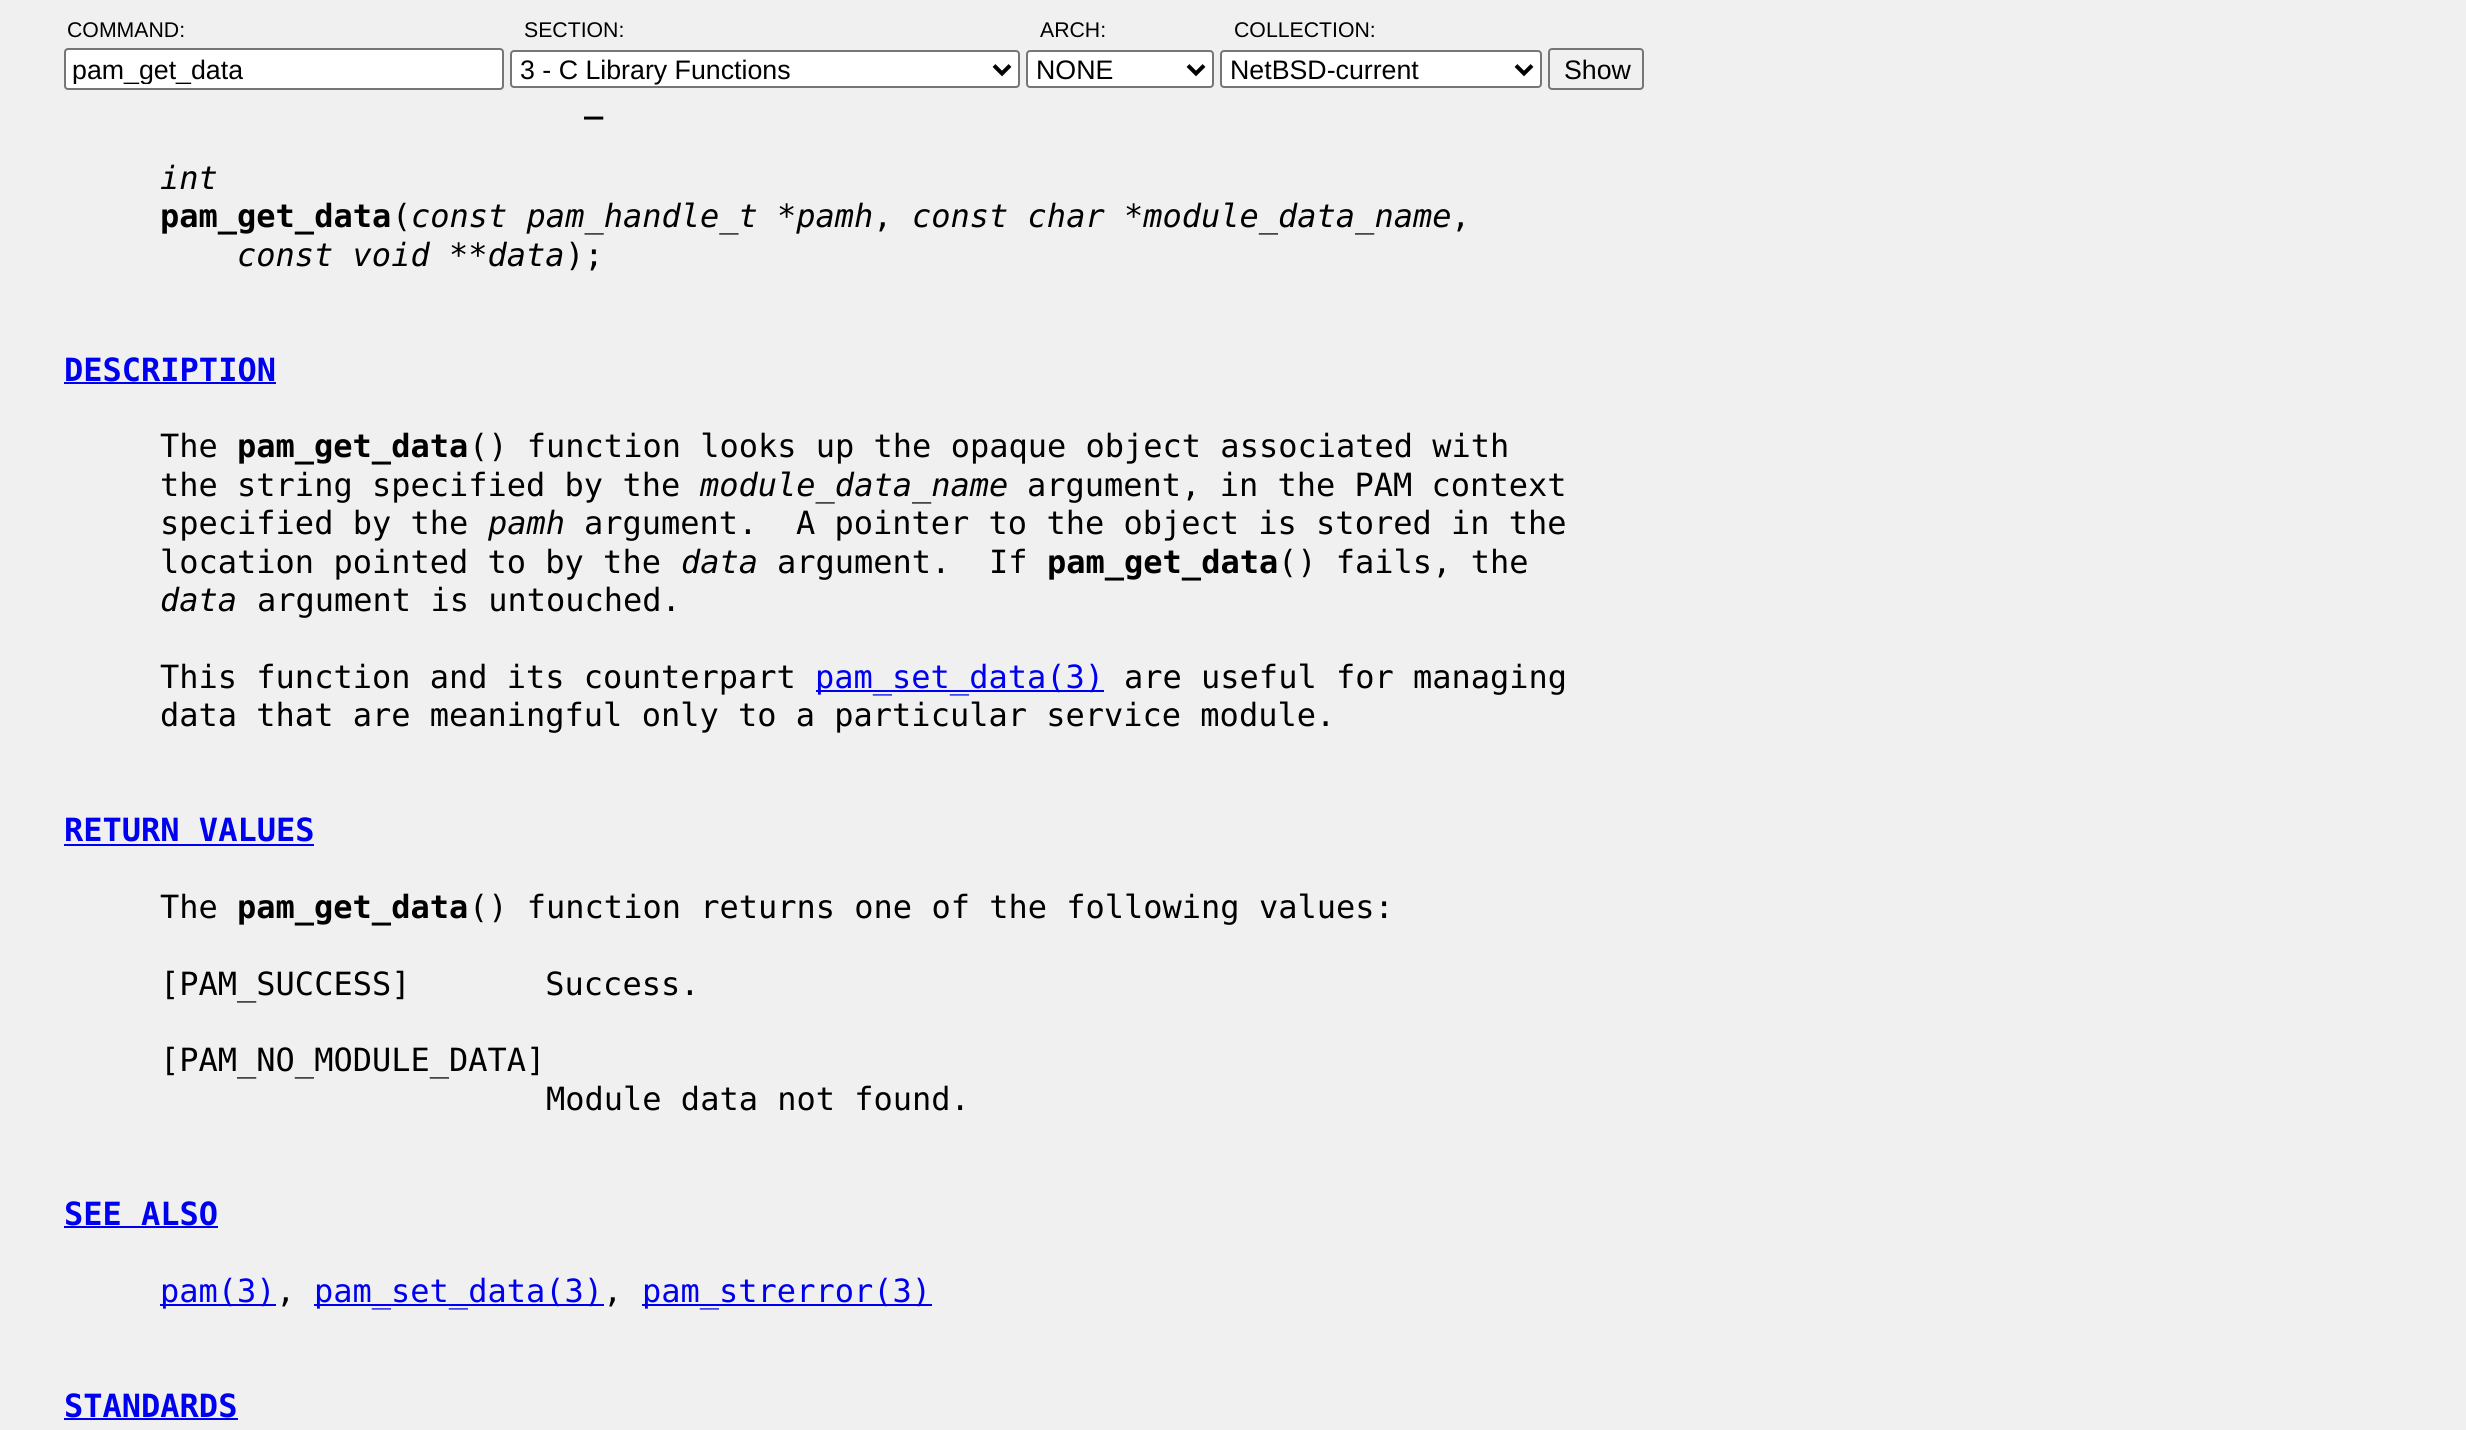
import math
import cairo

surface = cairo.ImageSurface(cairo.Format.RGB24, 2466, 1430)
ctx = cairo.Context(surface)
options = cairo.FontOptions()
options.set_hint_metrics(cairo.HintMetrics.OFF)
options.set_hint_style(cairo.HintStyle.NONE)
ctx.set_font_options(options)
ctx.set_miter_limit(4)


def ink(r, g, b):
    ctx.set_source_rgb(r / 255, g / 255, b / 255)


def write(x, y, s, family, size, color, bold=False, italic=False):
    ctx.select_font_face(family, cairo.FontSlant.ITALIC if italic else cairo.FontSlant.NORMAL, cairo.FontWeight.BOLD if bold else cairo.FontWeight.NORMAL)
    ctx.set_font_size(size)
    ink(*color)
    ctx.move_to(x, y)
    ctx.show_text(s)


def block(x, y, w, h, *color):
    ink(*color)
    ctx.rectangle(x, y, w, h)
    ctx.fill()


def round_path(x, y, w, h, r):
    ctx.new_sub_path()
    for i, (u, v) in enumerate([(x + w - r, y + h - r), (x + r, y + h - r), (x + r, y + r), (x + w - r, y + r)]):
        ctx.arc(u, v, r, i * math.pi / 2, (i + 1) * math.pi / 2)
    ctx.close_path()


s1 = dict(family="Liberation Sans", size=21.25, color=(0, 0, 0))
s2 = dict(family="Liberation Sans", size=26.75, color=(0, 0, 0))
s3 = dict(family="DejaVu Sans Mono", size=32, color=(0, 0, 0), bold=True)
s4 = dict(family="DejaVu Sans Mono", size=32, color=(0, 0, 0), italic=True)
s5 = dict(family="DejaVu Sans Mono", size=32, color=(0, 0, 0))
s6 = dict(family="DejaVu Sans Mono", size=32, color=(0, 0, 240), bold=True)
s7 = dict(family="DejaVu Sans Mono", size=32, color=(0, 0, 240))

ink(240, 240, 240)
ctx.paint()
write(67, 37, "COMMAND:", **s1)
ink(255, 255, 255)
round_path(65, 49, 438, 40, 3)
ctx.fill_preserve()
ink(118, 118, 118)
ctx.stroke()
ctx.save()
ctx.rectangle(72, 54, 418, 30)
ctx.clip()
write(72, 79, "pam_get_data", **s2)
ctx.restore()
write(524, 37, "SECTION:", **s1)
ink(255, 255, 255)
round_path(511, 51, 508, 36, 3)
ctx.fill_preserve()
ink(118, 118, 118)
ctx.stroke()
ctx.new_path()
ctx.move_to(994, 65.5)
ctx.line_to(1002, 73.5)
ctx.line_to(1010, 65.5)
ink(0, 0, 0)
ctx.set_line_width(4)
ctx.stroke()
write(520, 79, "3 - C Library Functions", **s2)
write(1040, 37, "ARCH:", **s1)
ink(255, 255, 255)
round_path(1027, 51, 186, 36, 3)
ctx.fill_preserve()
ink(118, 118, 118)
ctx.set_line_width(2)
ctx.stroke()
ctx.new_path()
ctx.move_to(1188, 65.5)
ctx.line_to(1196, 73.5)
ctx.line_to(1204, 65.5)
ink(0, 0, 0)
ctx.set_line_width(4)
ctx.stroke()
write(1036, 79, "NONE", **s2)
write(1234, 37, "COLLECTION:", **s1)
ink(255, 255, 255)
round_path(1221, 51, 320, 36, 3)
ctx.fill_preserve()
ink(118, 118, 118)
ctx.set_line_width(2)
ctx.stroke()
ctx.new_path()
ctx.move_to(1516, 65.5)
ctx.line_to(1524, 73.5)
ctx.line_to(1532, 65.5)
ink(0, 0, 0)
ctx.set_line_width(4)
ctx.stroke()
write(1230, 79, "NetBSD-current", **s2)
round_path(1549, 49, 94, 40, 3)
ink(118, 118, 118)
ctx.set_line_width(2)
ctx.stroke()
write(1564, 79, "Show", **s2)
write(584, 112, "_", **s3)
write(160, 189, "int", **s4)
write(160, 227, "pam_get_data", **s3)
write(392, 227, "(", **s5)
write(411, 227, "const pam_handle_t *pamh", **s4)
write(873, 227, ",", **s5)
write(912, 227, "const char *module_data_name", **s4)
write(1451, 227, ",", **s5)
write(237, 266, "const void **data", **s4)
write(565, 266, ");", **s5)
write(64, 381, "DESCRIPTION", **s6)
block(64, 382, 212, 2, 0, 0, 240)
write(160, 457, "The", **s5)
write(237, 457, "pam_get_data", **s3)
write(469, 457, "() function looks up the opaque object associated with", **s5)
write(160, 496, "the string specified by the", **s5)
write(700, 496, "module_data_name", **s4)
write(1027, 496, "argument, in the PAM context", **s5)
write(160, 534, "specified by the", **s5)
write(488, 534, "pamh", **s4)
write(584, 534, "argument.  A pointer to the object is stored in the", **s5)
write(160, 573, "location pointed to by the", **s5)
write(681, 573, "data", **s4)
write(777, 573, "argument.  If", **s5)
write(1047, 573, "pam_get_data", **s3)
write(1278, 573, "() fails, the", **s5)
write(160, 611, "data", **s4)
write(257, 611, "argument is untouched.", **s5)
write(160, 688, "This function and its counterpart", **s5)
block(816, 690, 288, 2, 0, 0, 240)
write(815, 688, "pam_set_data(3)", **s7)
write(1124, 688, "are useful for managing", **s5)
write(160, 726, "data that are meaningful only to a particular service module.", **s5)
write(64, 841, "RETURN VALUES", **s6)
block(64, 844, 250, 2, 0, 0, 240)
write(160, 918, "The", **s5)
write(237, 918, "pam_get_data", **s3)
write(469, 918, "() function returns one of the following values:", **s5)
write(160, 995, "[PAM_SUCCESS]       Success.", **s5)
write(160, 1071, "[PAM_NO_MODULE_DATA]", **s5)
write(546, 1110, "Module data not found.", **s5)
write(64, 1225, "SEE ALSO", **s6)
block(64, 1226, 154, 2, 0, 0, 240)
block(160, 1304, 116, 2, 0, 0, 240)
write(160, 1302, "pam(3)", **s7)
write(276, 1302, ",", **s5)
block(314, 1304, 290, 2, 0, 0, 240)
write(314, 1302, "pam_set_data(3)", **s7)
write(603, 1302, ",", **s5)
block(642, 1304, 290, 2, 0, 0, 240)
write(642, 1302, "pam_strerror(3)", **s7)
write(64, 1417, "STANDARDS", **s6)
block(64, 1418, 174, 2, 0, 0, 240)
surface.write_to_png("screenshot.png")
